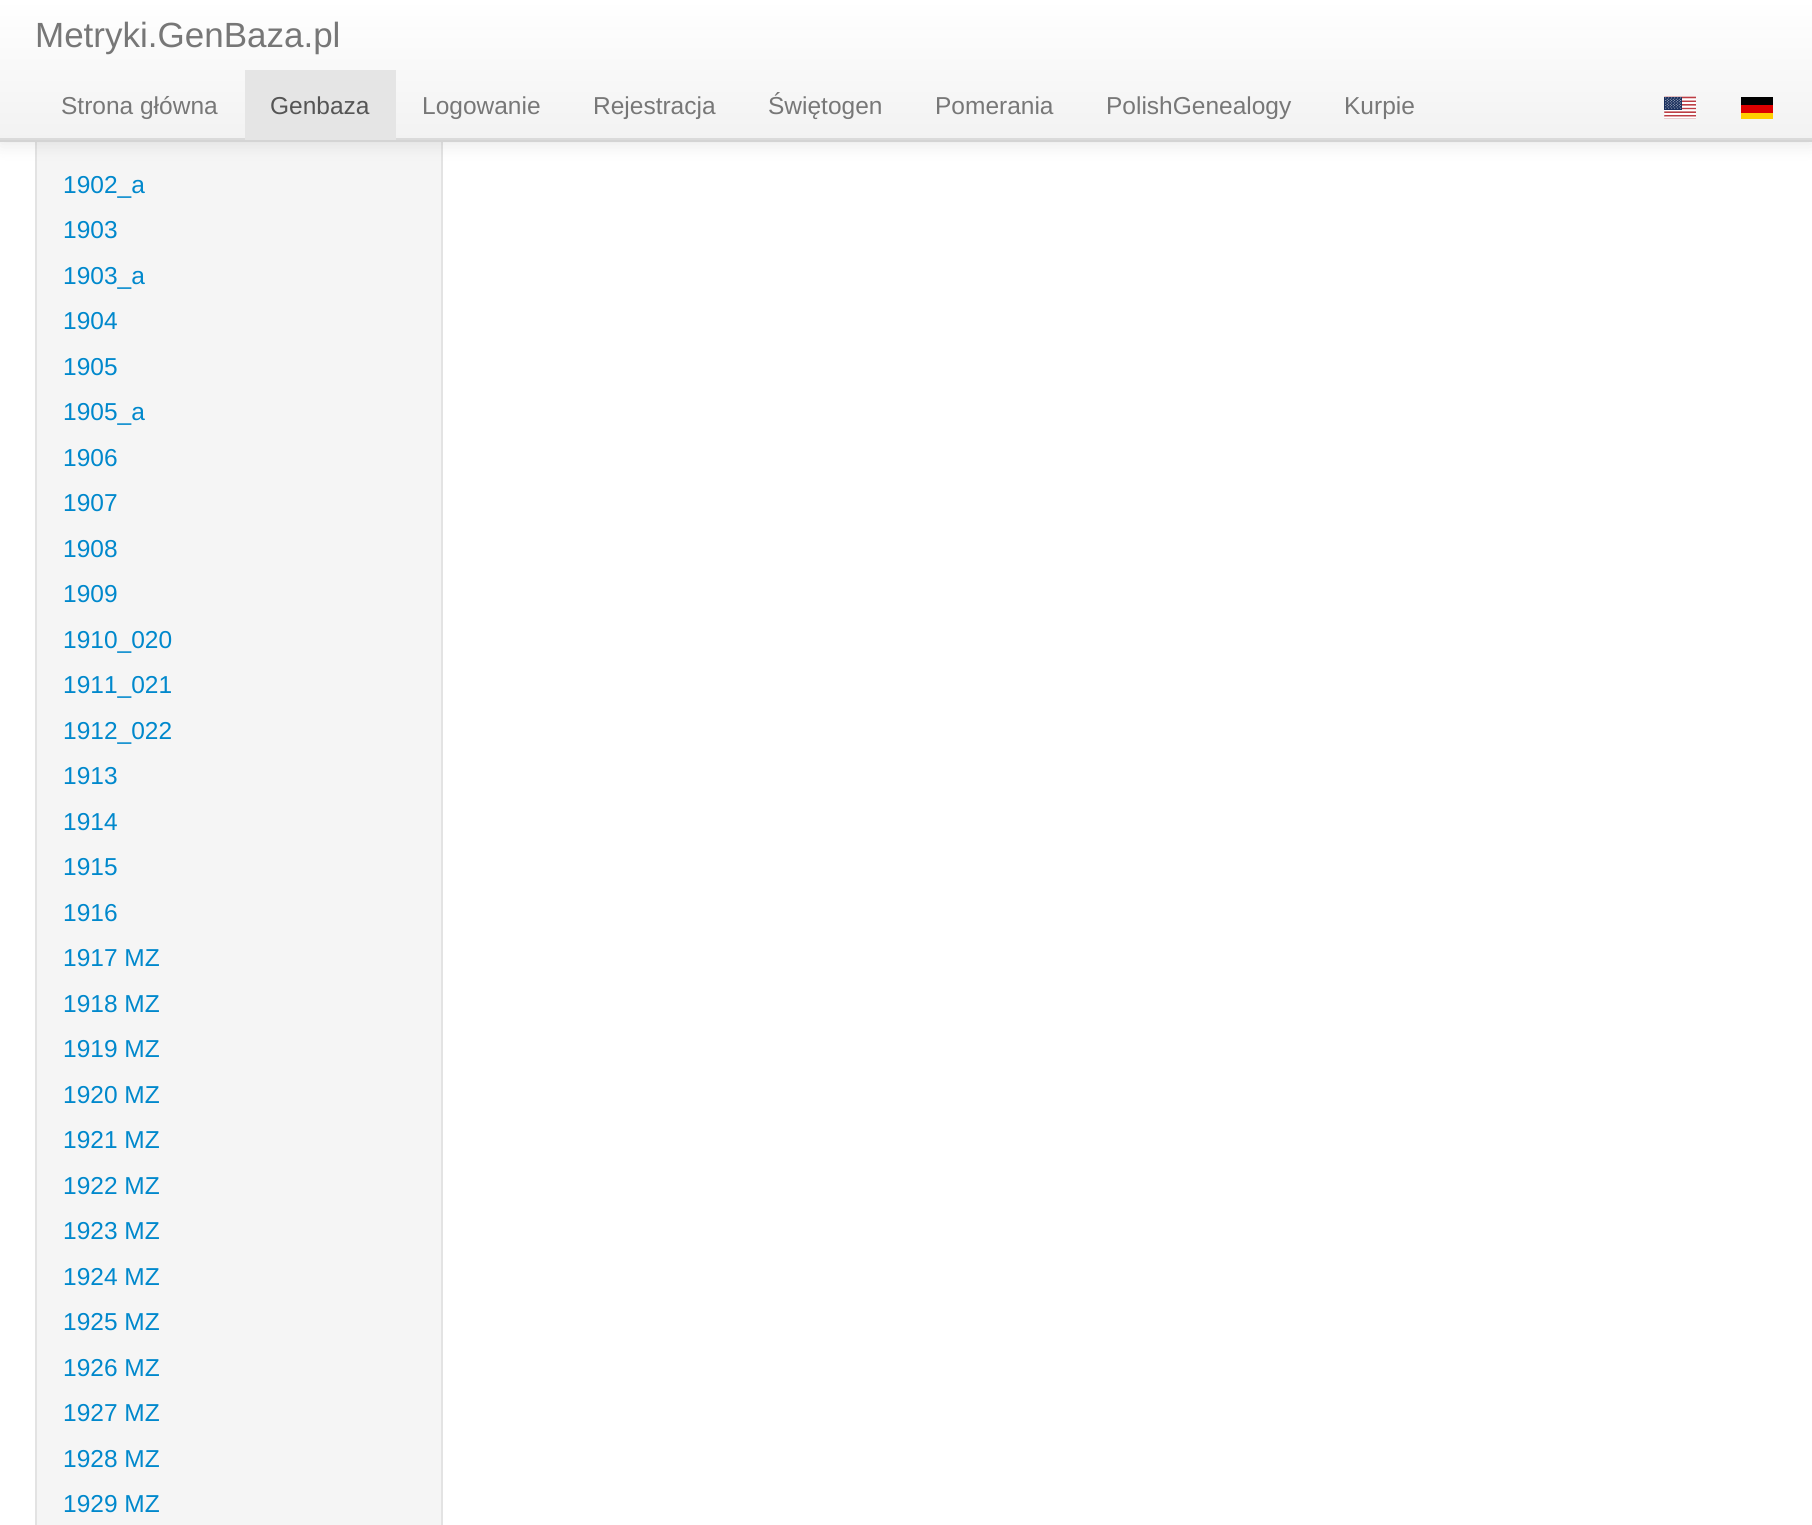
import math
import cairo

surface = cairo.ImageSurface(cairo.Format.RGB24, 1812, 1525)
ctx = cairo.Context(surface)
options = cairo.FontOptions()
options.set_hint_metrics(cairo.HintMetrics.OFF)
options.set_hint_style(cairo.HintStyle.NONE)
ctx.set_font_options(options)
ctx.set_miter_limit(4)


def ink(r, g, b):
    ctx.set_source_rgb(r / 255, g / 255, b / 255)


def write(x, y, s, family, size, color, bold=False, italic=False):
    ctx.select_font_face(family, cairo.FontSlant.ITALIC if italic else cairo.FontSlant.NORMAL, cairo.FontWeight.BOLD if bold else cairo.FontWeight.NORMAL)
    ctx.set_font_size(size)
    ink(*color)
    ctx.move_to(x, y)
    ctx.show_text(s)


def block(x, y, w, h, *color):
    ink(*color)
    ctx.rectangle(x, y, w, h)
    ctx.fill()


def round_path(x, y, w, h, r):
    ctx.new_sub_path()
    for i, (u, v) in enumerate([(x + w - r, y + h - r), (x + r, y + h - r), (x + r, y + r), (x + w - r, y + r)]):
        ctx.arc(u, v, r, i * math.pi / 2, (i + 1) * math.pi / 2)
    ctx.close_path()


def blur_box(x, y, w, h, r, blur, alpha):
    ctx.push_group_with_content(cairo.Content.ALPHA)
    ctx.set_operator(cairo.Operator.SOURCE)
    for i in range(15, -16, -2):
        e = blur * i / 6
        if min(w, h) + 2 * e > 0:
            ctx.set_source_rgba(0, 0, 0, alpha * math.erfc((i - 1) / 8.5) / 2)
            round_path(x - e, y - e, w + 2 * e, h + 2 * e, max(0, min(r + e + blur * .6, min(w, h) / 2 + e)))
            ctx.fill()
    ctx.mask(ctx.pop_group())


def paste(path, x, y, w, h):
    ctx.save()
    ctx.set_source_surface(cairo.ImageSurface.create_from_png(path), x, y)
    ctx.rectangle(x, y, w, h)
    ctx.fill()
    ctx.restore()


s1 = dict(family="Liberation Sans", size=35, color=(119, 119, 119))
s2 = dict(family="Liberation Sans", size=24.5, color=(119, 119, 119))
s3 = dict(family="Liberation Sans", size=24.5, color=(85, 85, 85))
s4 = dict(family="Liberation Sans", size=24.5, color=(0, 136, 204))

ink(255, 255, 255)
ctx.paint()
block(37, 142, 404, 1383, 245, 245, 245)
ctx.rectangle(36, -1, 406, 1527)
ink(227, 227, 227)
ctx.stroke()
ink(0, 0, 0)
blur_box(0, 2, 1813, 142, 0, 9, 0.1)
gradient = cairo.LinearGradient(907, 0, 907, 140)
gradient.add_color_stop_rgba(0, 1, 1, 1, 1)
gradient.add_color_stop_rgba(1, 0.949, 0.949, 0.949, 1)
ctx.set_source(gradient)
ctx.rectangle(0, 0, 1812, 138)
ctx.fill()
block(0, 138, 1812, 2, 218, 218, 218)
block(0, 140, 1812, 2, 212, 212, 212)
write(35, 47, "Metryki.GenBaza.pl", **s1)
write(61, 114, "Strona główna", **s2)
block(245, 70, 151, 70, 229, 229, 229)
write(270, 114, "Genbaza", **s3)
write(422, 114, "Logowanie", **s2)
write(593, 114, "Rejestracja", **s2)
write(768, 114, "Świętogen", **s2)
write(935, 114, "Pomerania", **s2)
write(1106, 114, "PolishGenealogy", **s2)
write(1344, 114, "Kurpie", **s2)
paste("pic1.png", 1664, 96, 32, 23)
block(1741, 97, 32, 8, 0, 0, 0)
block(1741, 105, 32, 8, 221, 0, 0)
block(1741, 113, 32, 6, 255, 206, 0)
write(63, 193, "1902_a", **s4)
write(63, 238, "1903", **s4)
write(63, 284, "1903_a", **s4)
write(63, 329, "1904", **s4)
write(63, 375, "1905", **s4)
write(63, 420, "1905_a", **s4)
write(63, 466, "1906", **s4)
write(63, 511, "1907", **s4)
write(63, 557, "1908", **s4)
write(63, 602, "1909", **s4)
write(63, 648, "1910_020", **s4)
write(63, 693, "1911_021", **s4)
write(63, 739, "1912_022", **s4)
write(63, 784, "1913", **s4)
write(63, 830, "1914", **s4)
write(63, 875, "1915", **s4)
write(63, 921, "1916", **s4)
write(63, 966, "1917 MZ", **s4)
write(63, 1012, "1918 MZ", **s4)
write(63, 1057, "1919 MZ", **s4)
write(63, 1103, "1920 MZ", **s4)
write(63, 1148, "1921 MZ", **s4)
write(63, 1194, "1922 MZ", **s4)
write(63, 1239, "1923 MZ", **s4)
write(63, 1285, "1924 MZ", **s4)
write(63, 1330, "1925 MZ", **s4)
write(63, 1376, "1926 MZ", **s4)
write(63, 1421, "1927 MZ", **s4)
write(63, 1467, "1928 MZ", **s4)
write(63, 1512, "1929 MZ", **s4)
surface.write_to_png("screenshot.png")
